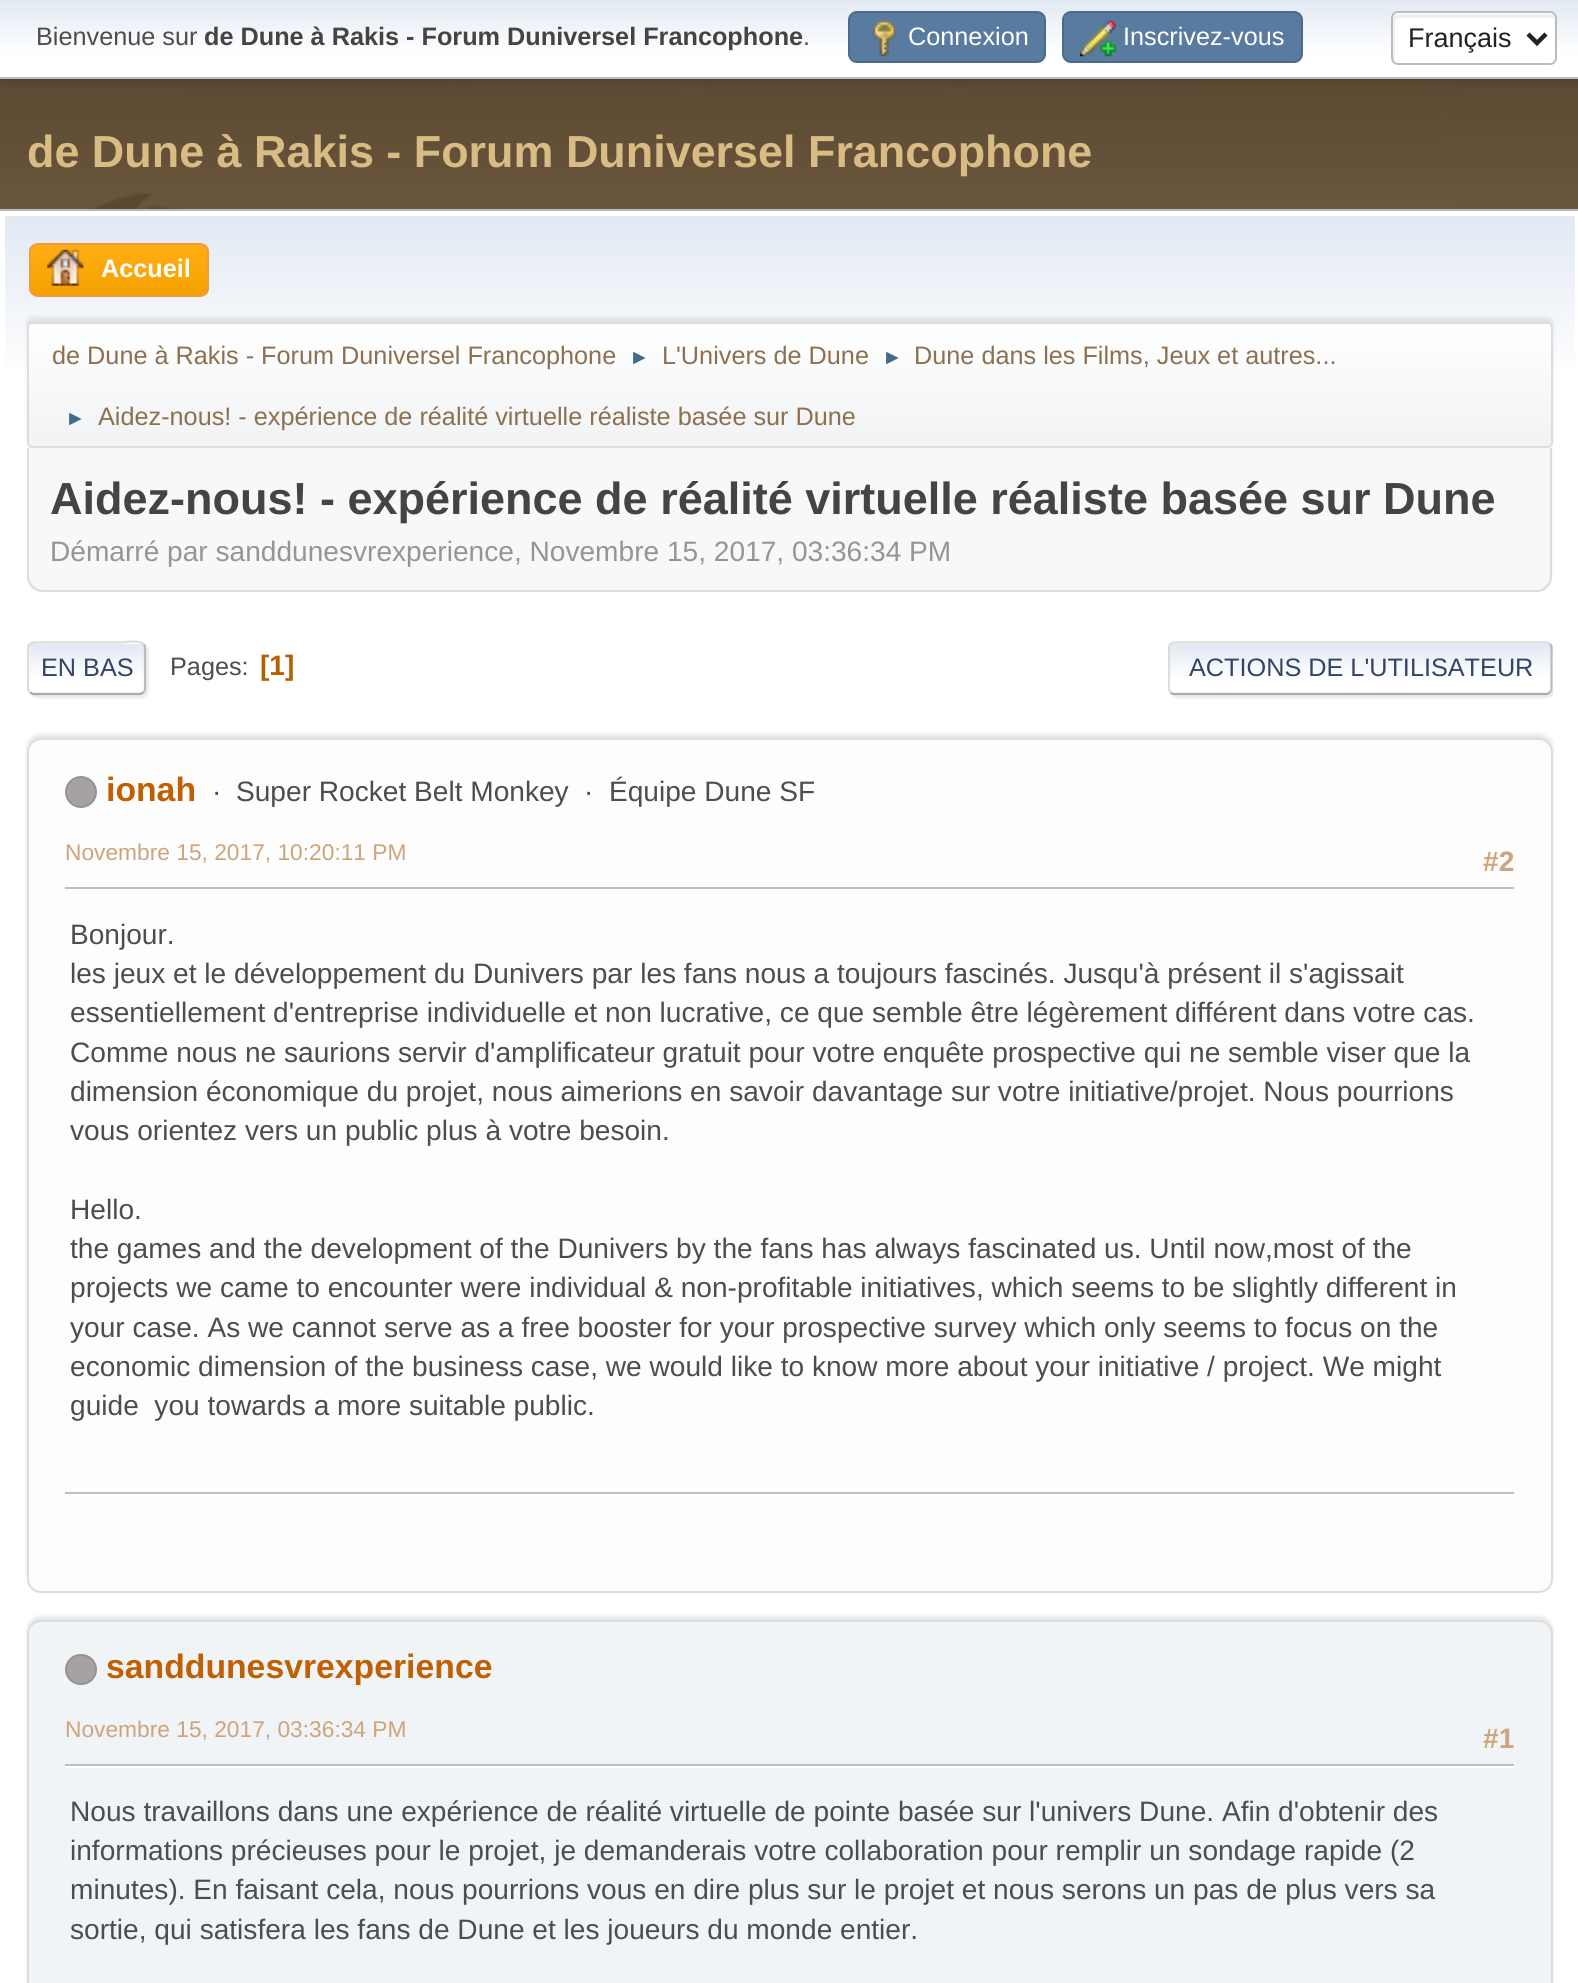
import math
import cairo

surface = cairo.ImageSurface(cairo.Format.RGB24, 1578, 1983)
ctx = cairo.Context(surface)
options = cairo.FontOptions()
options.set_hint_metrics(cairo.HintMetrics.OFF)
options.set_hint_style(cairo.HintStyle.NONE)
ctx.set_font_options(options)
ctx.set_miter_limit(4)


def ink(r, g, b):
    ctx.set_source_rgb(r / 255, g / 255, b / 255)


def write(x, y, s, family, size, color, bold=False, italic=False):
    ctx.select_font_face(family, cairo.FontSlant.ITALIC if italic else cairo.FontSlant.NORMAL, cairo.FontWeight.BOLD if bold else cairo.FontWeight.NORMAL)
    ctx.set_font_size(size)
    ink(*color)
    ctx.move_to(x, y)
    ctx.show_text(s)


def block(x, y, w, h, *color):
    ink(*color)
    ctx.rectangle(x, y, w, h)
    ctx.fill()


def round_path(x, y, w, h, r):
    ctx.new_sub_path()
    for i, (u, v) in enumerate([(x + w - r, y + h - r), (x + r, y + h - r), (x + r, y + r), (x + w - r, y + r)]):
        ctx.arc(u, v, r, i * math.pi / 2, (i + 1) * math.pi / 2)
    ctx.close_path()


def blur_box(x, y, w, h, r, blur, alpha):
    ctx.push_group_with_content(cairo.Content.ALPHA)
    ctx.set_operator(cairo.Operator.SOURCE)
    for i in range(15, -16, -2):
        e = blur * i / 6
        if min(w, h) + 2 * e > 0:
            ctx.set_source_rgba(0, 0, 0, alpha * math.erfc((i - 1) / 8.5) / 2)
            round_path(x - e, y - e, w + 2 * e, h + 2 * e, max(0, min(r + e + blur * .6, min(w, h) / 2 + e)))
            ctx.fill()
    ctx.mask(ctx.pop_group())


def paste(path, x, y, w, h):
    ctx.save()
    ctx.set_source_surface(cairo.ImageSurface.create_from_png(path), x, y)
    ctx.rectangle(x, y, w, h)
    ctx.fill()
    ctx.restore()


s1 = dict(family="Liberation Sans", size=25.25, color=(77, 77, 77))
s2 = dict(family="Liberation Sans", size=25.25, color=(68, 68, 68), bold=True)
s3 = dict(family="Liberation Sans", size=25.25, color=(255, 255, 255))
s4 = dict(family="Liberation Sans", size=27, color=(34, 34, 34))
s5 = dict(family="Liberation Sans", size=44.9, color=(217, 187, 132), bold=True)
s6 = dict(family="Liberation Sans", size=25.25, color=(255, 255, 255), bold=True)
s7 = dict(family="Liberation Sans", size=25.25, color=(140, 112, 79))
s8 = dict(family="Liberation Sans", size=21, color=(63, 107, 140))
s9 = dict(family="Liberation Sans", size=45, color=(68, 68, 68), bold=True)
s10 = dict(family="Liberation Sans", size=28.1, color=(149, 149, 149))
s11 = dict(family="Liberation Sans", size=25.25, color=(51, 68, 102))
s12 = dict(family="Liberation Sans", size=28.1, color=(180, 97, 0), bold=True)
s13 = dict(family="Liberation Sans", size=33.75, color=(192, 96, 2), bold=True)
s14 = dict(family="Liberation Sans", size=28.1, color=(77, 77, 77))
s15 = dict(family="Liberation Sans", size=22.75, color=(205, 164, 123))
s16 = dict(family="Liberation Sans", size=28.1, color=(205, 164, 123), bold=True)

ink(255, 255, 255)
ctx.paint()
paste("pic1.png", 0, 79, 1578, 130)
ink(0, 0, 0)
blur_box(0, 2, 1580, 79, 0, 4.5, 0.16)
gradient = cairo.LinearGradient(790, 0, 790, 77)
gradient.add_color_stop_rgba(0, 0.886, 0.914, 0.953, 1)
gradient.add_color_stop_rgba(0.7, 1, 1, 1, 1)
ctx.set_source(gradient)
ctx.rectangle(0, 0, 1578, 77)
ctx.fill()
block(0, 77, 1578, 2, 187, 187, 187)
write(36, 45, "Bienvenue sur", **s1)
write(204, 45, "de Dune à Rakis - Forum Duniversel Francophone", **s2)
write(803, 45, ".", **s1)
ink(89, 123, 159)
round_path(849, 12, 196, 50, 8)
ctx.fill_preserve()
ink(74, 107, 140)
ctx.stroke()
paste("pic2.png", 872, 20, 25, 37)
write(908, 45, "Connexion", **s3)
ink(89, 123, 159)
round_path(1063, 12, 239, 50, 8)
ctx.fill_preserve()
ink(74, 107, 140)
ctx.stroke()
paste("pic3.png", 1080, 20, 36, 37)
write(1123, 45, "Inscrivez-vous", **s3)
round_path(1391, 11, 166, 54, 7)
ctx.fill()
ink(236, 241, 248)
ctx.new_path()
ctx.move_to(1400, 18)
ctx.line_to(1552, 18)
ctx.line_to(1555, 19)
ctx.curve_to(1555, 16, 1553, 14, 1550, 14)
ctx.line_to(1398, 14)
ctx.curve_to(1395, 14, 1393, 16, 1393, 19)
ctx.line_to(1393, 58)
ctx.curve_to(1393, 60, 1394, 61, 1395, 62)
ctx.line_to(1395, 22)
ctx.curve_to(1395, 20, 1397, 18, 1400, 18)
ctx.close_path()
ctx.fill()
round_path(1392, 12, 164, 52, 6)
ink(187, 187, 187)
ctx.stroke()
ctx.new_path()
ctx.move_to(1528, 34)
ctx.line_to(1537, 43)
ctx.line_to(1546, 34)
ink(34, 34, 34)
ctx.set_line_width(4.5)
ctx.stroke()
write(1408, 47, "Français", **s4)
write(27, 167, "de Dune à Rakis - Forum Duniversel Francophone", **s5)
block(0, 209, 1578, 2, 184, 184, 184)
gradient = cairo.LinearGradient(790, 216, 790, 452)
gradient.add_color_stop_rgba(0, 0.886, 0.914, 0.953, 1)
gradient.add_color_stop_rgba(0.7, 1, 1, 1, 1)
ctx.set_source(gradient)
ctx.rectangle(5, 216, 1570, 151)
ctx.fill()
ctx.save()
round_path(29, 243, 180, 54, 9)
ctx.clip()
gradient = cairo.LinearGradient(119, 245, 119, 295)
gradient.add_color_stop_rgba(0, 1, 0.682, 0.078, 1)
gradient.add_color_stop_rgba(1, 0.961, 0.631, 0, 1)
ctx.set_source(gradient)
ctx.rectangle(29, 245, 180, 50)
ctx.fill()
ctx.restore()
round_path(30, 244, 178, 52, 8)
ink(244, 154, 58)
ctx.set_line_width(2)
ctx.stroke()
paste("pic4.png", 47, 249, 37, 37)
write(101, 277, "Accueil", **s6)
ink(0, 0, 0)
blur_box(27, 317, 1526, 126, 5, 2, 0.08)
ctx.save()
round_path(27, 322, 1526, 126, 5)
ctx.clip()
gradient = cairo.LinearGradient(790, 324, 790, 446)
gradient.add_color_stop_rgba(0, 1, 1, 1, 1)
gradient.add_color_stop_rgba(0.95, 0.945, 0.953, 0.961, 1)
ctx.set_source(gradient)
ctx.rectangle(27, 324, 1526, 122)
ctx.fill()
ctx.restore()
round_path(28, 323, 1524, 124, 4)
ink(221, 221, 221)
ctx.stroke()
write(52, 364, "de Dune à Rakis - Forum Duniversel Francophone", **s7)
write(629, 364, "►", **s8)
write(662, 364, "L'Univers de Dune", **s7)
write(882, 364, "►", **s8)
write(914, 364, "Dune dans les Films, Jeux et autres...", **s7)
write(65, 425, "►", **s8)
write(98, 425, "Aidez-nous! - expérience de réalité virtuelle réaliste basée sur Dune", **s7)
ink(248, 248, 248)
ctx.new_path()
ctx.move_to(27, 448)
ctx.line_to(1553, 448)
ctx.line_to(1553, 576)
ctx.curve_to(1553, 585, 1546, 592, 1537, 592)
ctx.line_to(43, 592)
ctx.curve_to(34, 592, 27, 585, 27, 576)
ctx.close_path()
ctx.fill()
ink(221, 221, 221)
ctx.set_fill_rule(cairo.FillRule.EVEN_ODD)
ctx.new_path()
ctx.move_to(27, 448)
ctx.line_to(1552, 448)
ctx.line_to(1552, 576)
ctx.curve_to(1552, 585, 1545, 592, 1537, 592)
ctx.line_to(43, 592)
ctx.curve_to(34, 592, 27, 585, 27, 576)
ctx.close_path()
ctx.move_to(29, 448)
ctx.line_to(1550, 448)
ctx.line_to(1550, 576)
ctx.curve_to(1550, 583, 1544, 590, 1537, 590)
ctx.line_to(43, 590)
ctx.curve_to(35, 590, 29, 583, 29, 576)
ctx.close_path()
ctx.fill()
write(50, 514, "Aidez-nous! - expérience de réalité virtuelle réaliste basée sur Dune", **s9)
write(50, 561, "Démarré par sanddunesvrexperience, Novembre 15, 2017, 03:36:34 PM", **s10)
ink(221, 221, 221)
blur_box(29, 644, 120, 54, 7, 1, 0.57)
ink(255, 255, 255)
round_path(27, 641, 119, 54, 7)
ctx.fill()
ctx.save()
ctx.set_fill_rule(cairo.FillRule.WINDING)
round_path(27, 641, 119, 54, 7)
ctx.clip()
gradient = cairo.LinearGradient(87, 644, 87, 693)
gradient.add_color_stop_rgba(0, 0.886, 0.914, 0.953, 1)
gradient.add_color_stop_rgba(0.7, 1, 1, 1, 1)
ctx.set_source(gradient)
ctx.rectangle(27, 644, 119, 49)
ctx.fill()
ctx.restore()
ctx.new_path()
ctx.move_to(143.5, 644)
ctx.curve_to(144.5, 645, 145, 646.5, 145, 648)
ctx.line_to(145, 688.5)
ctx.curve_to(145, 690, 144.5, 691.5, 143.5, 692.5)
ink(187, 187, 187)
ctx.set_line_width(2.2)
ctx.stroke()
ctx.new_path()
ctx.move_to(143.5, 692.5)
ctx.line_to(140, 694)
ctx.line_to(33, 694)
ctx.line_to(30, 692.5)
ink(170, 170, 170)
ctx.stroke()
ctx.save()
ctx.set_fill_rule(cairo.FillRule.WINDING)
ctx.rectangle(27, 626, 1526, 85)
ctx.clip()
ctx.new_path()
ctx.move_to(30, 692.5)
ctx.curve_to(27, 690, 28, 685, 28, 682)
ctx.line_to(28, 668)
ctx.curve_to(28, 639.5, 23, 642.5, 51.5, 642.5)
ctx.line_to(122, 642.5)
ctx.curve_to(123, 642.5, 139, 639.5, 143.5, 644)
ink(221, 221, 221)
ctx.stroke()
ctx.restore()
write(41, 676, "EN BAS", **s11)
write(170, 675, "Pages:", **s1)
write(260, 675, "[1]", **s12)
ctx.save()
ctx.set_fill_rule(cairo.FillRule.WINDING)
ctx.rectangle(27, 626, 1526, 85)
ctx.clip()
ink(221, 221, 221)
blur_box(1170, 644, 385, 54, 7, 1, 0.57)
ctx.restore()
ink(255, 255, 255)
round_path(1168, 641, 385, 54, 7)
ctx.fill()
ctx.save()
ctx.set_fill_rule(cairo.FillRule.WINDING)
round_path(1168, 641, 385, 54, 7)
ctx.clip()
gradient = cairo.LinearGradient(1360, 644, 1360, 693)
gradient.add_color_stop_rgba(0, 0.886, 0.914, 0.953, 1)
gradient.add_color_stop_rgba(0.7, 1, 1, 1, 1)
ctx.set_source(gradient)
ctx.rectangle(1168, 644, 385, 49)
ctx.fill()
ctx.restore()
ctx.new_path()
ctx.move_to(1549.5, 644)
ctx.curve_to(1551, 645, 1551.5, 646.5, 1551.5, 648)
ctx.line_to(1551.5, 688.5)
ctx.curve_to(1551.5, 690, 1551, 691.5, 1549.5, 692.5)
ink(187, 187, 187)
ctx.stroke()
ctx.new_path()
ctx.move_to(1549.5, 692.5)
ctx.curve_to(1548.5, 693.5, 1547, 694, 1546, 694)
ctx.line_to(1174.5, 694)
ctx.curve_to(1173, 694, 1171.5, 693.5, 1170.5, 692.5)
ink(170, 170, 170)
ctx.stroke()
ctx.new_path()
ctx.move_to(1170.5, 692.5)
ctx.curve_to(1169.5, 691.5, 1169, 690, 1169, 688.5)
ctx.line_to(1169, 648)
ctx.curve_to(1169, 646.5, 1169.5, 645, 1170.5, 644)
ctx.curve_to(1171.5, 643, 1173, 642.5, 1174.5, 642.5)
ctx.line_to(1546, 642.5)
ctx.curve_to(1547, 642.5, 1548.5, 643, 1549.5, 644)
ink(221, 221, 221)
ctx.stroke()
write(1189, 676, "ACTIONS DE L'UTILISATEUR", **s11)
ink(0, 0, 0)
blur_box(27, 734, 1526, 855, 14, 2, 0.1)
ink(253, 253, 253)
round_path(28, 739, 1524, 853, 13)
ctx.fill_preserve()
ink(221, 221, 221)
ctx.set_line_width(2)
ctx.stroke()
ink(167, 162, 162)
ctx.arc(81, 792, 15, 0, 2 * math.pi)
ctx.fill_preserve()
ink(150, 146, 146)
ctx.stroke()
write(106, 801, "ionah", **s13)
write(212, 801, "·", **s14)
write(236, 801, "Super Rocket Belt Monkey", **s14)
write(584, 801, "·", **s14)
write(609, 801, "Équipe Dune SF", **s14)
write(65, 860, "Novembre 15, 2017, 10:20:11 PM", **s15)
write(1483, 871, "#2", **s16)
block(65, 887, 1449, 2, 191, 191, 191)
write(70, 944, "Bonjour.", **s14)
write(70, 983, "les jeux et le développement du Dunivers par les fans nous a toujours fascinés. Jusqu'à présent il s'agissait", **s14)
write(70, 1022, "essentiellement d'entreprise individuelle et non lucrative, ce que semble être légèrement différent dans votre cas.", **s14)
write(70, 1062, "Comme nous ne saurions servir d'amplificateur gratuit pour votre enquête prospective qui ne semble viser que la", **s14)
write(70, 1101, "dimension économique du projet, nous aimerions en savoir davantage sur votre initiative/projet. Nous pourrions", **s14)
write(70, 1140, "vous orientez vers un public plus à votre besoin.", **s14)
write(70, 1219, "Hello.", **s14)
write(70, 1258, "the games and the development of the Dunivers by the fans has always fascinated us. Until now,most of the", **s14)
write(70, 1297, "projects we came to encounter were individual & non-profitable initiatives, which seems to be slightly different in", **s14)
write(70, 1337, "your case. As we cannot serve as a free booster for your prospective survey which only seems to focus on the", **s14)
write(70, 1376, "economic dimension of the business case, we would like to know more about your initiative / project. We might", **s14)
write(70, 1415, "guide  you towards a more suitable public.", **s14)
block(65, 1492, 1449, 2, 191, 191, 191)
ink(0, 0, 0)
blur_box(27, 1616, 1526, 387, 14, 2, 0.1)
ink(240, 244, 247)
round_path(28, 1621, 1524, 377, 13)
ctx.fill_preserve()
ink(221, 221, 221)
ctx.stroke()
ink(167, 162, 162)
round_path(66, 1655, 30, 29, 14.5)
ctx.fill_preserve()
ink(150, 146, 146)
ctx.stroke()
write(106, 1678, "sanddunesvrexperience", **s13)
write(65, 1737, "Novembre 15, 2017, 03:36:34 PM", **s15)
write(1483, 1748, "#1", **s16)
block(65, 1766, 1449, 2, 255, 255, 255)
block(65, 1764, 1449, 2, 191, 191, 191)
write(70, 1821, "Nous travaillons dans une expérience de réalité virtuelle de pointe basée sur l'univers Dune. Afin d'obtenir des", **s14)
write(70, 1860, "informations précieuses pour le projet, je demanderais votre collaboration pour remplir un sondage rapide (2", **s14)
write(70, 1899, "minutes). En faisant cela, nous pourrions vous en dire plus sur le projet et nous serons un pas de plus vers sa", **s14)
write(70, 1939, "sortie, qui satisfera les fans de Dune et les joueurs du monde entier.", **s14)
surface.write_to_png("screenshot.png")
